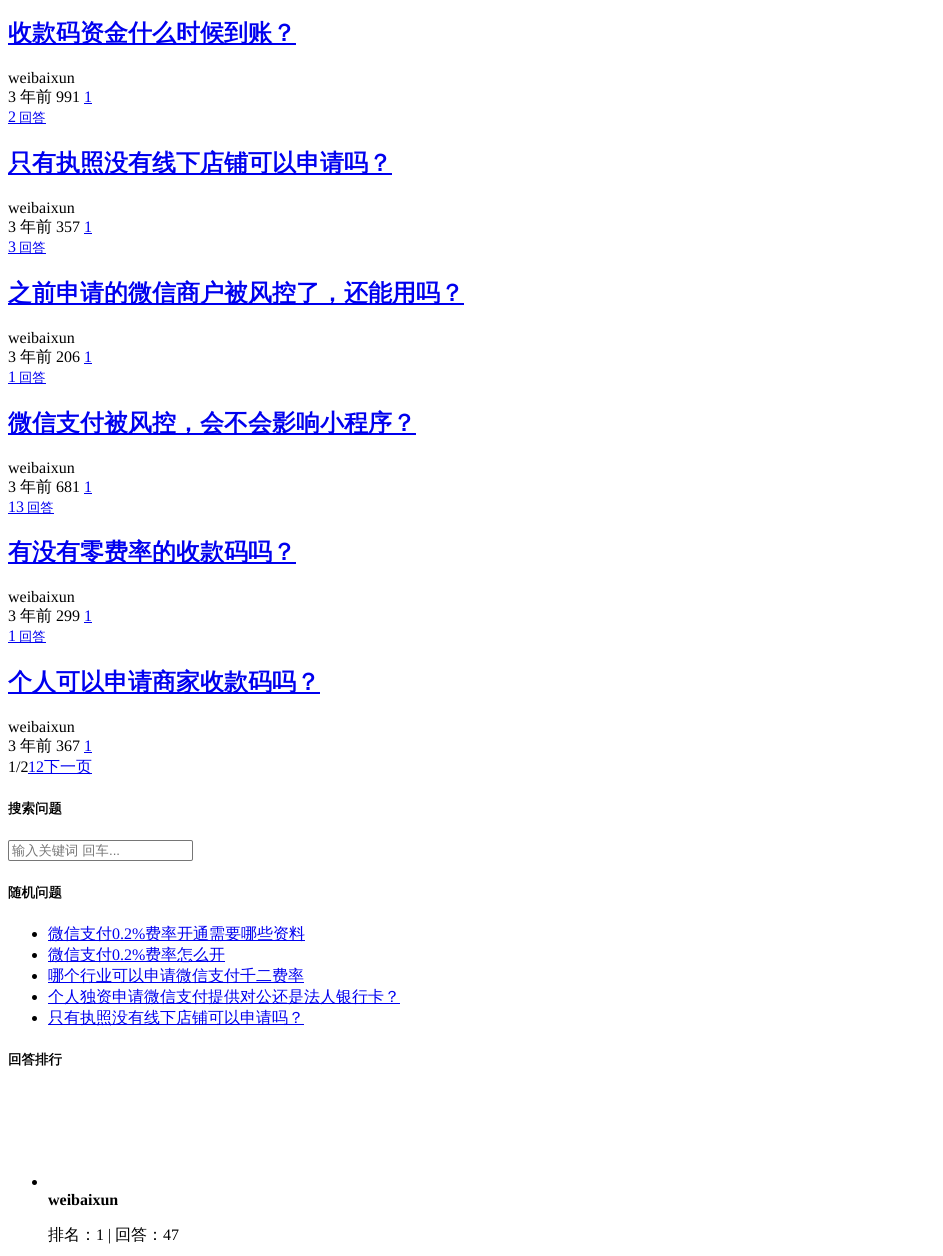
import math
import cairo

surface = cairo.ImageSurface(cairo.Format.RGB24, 943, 1256)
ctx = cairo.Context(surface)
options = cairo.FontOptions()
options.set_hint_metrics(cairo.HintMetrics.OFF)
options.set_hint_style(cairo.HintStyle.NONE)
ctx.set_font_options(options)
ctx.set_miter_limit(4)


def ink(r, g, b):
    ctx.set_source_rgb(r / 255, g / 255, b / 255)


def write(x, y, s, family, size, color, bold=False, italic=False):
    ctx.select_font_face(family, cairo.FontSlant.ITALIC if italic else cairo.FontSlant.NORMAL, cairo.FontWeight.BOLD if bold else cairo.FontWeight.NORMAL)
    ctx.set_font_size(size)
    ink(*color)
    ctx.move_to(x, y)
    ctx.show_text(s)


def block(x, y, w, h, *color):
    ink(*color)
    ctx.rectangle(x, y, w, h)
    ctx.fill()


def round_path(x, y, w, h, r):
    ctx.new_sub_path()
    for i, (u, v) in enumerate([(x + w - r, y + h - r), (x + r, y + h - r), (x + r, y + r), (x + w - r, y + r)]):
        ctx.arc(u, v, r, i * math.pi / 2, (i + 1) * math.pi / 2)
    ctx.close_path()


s1 = dict(family="WenQuanYi Zen Hei", size=24, color=(0, 0, 238), bold=True)
s2 = dict(family="Liberation Serif", size=16, color=(0, 0, 0))
s3 = dict(family="WenQuanYi Zen Hei Medium", size=16, color=(0, 0, 0))
s4 = dict(family="Liberation Serif", size=16, color=(0, 0, 238))
s5 = dict(family="WenQuanYi Zen Hei Medium", size=13.25, color=(0, 0, 238))
s6 = dict(family="WenQuanYi Zen Hei Medium", size=16, color=(0, 0, 238))
s7 = dict(family="WenQuanYi Zen Hei", size=13.5, color=(0, 0, 0), bold=True)
s8 = dict(family="WenQuanYi Zen Hei Medium", size=13.25, color=(117, 117, 117))
s9 = dict(family="Liberation Sans", size=13.25, color=(117, 117, 117))
s10 = dict(family="Liberation Serif", size=16, color=(0, 0, 0), bold=True)

ink(255, 255, 255)
ctx.paint()
block(8, 43, 288, 2, 0, 0, 238)
write(8, 41, "收款码资金什么时候到账？", **s1)
write(8, 83, "weibaixun", **s2)
write(8, 102, "3", **s2)
write(20, 102, "年前", **s3)
write(56, 102, "991", **s2)
write(84, 102, "1", **s4)
block(84, 103, 8, 1, 0, 0, 238)
write(8, 122, "2", **s4)
block(8, 123, 38, 1, 0, 0, 238)
write(19, 122, "回答", **s5)
block(8, 173, 384, 2, 0, 0, 238)
write(8, 171, "只有执照没有线下店铺可以申请吗？", **s1)
write(8, 213, "weibaixun", **s2)
write(8, 232, "3", **s2)
write(20, 232, "年前", **s3)
write(56, 232, "357", **s2)
write(84, 232, "1", **s4)
block(84, 233, 8, 1, 0, 0, 238)
write(8, 252, "3", **s4)
block(8, 253, 38, 1, 0, 0, 238)
write(19, 252, "回答", **s5)
block(8, 303, 456, 2, 0, 0, 238)
write(8, 301, "之前申请的微信商户被风控了，还能用吗？", **s1)
write(8, 343, "weibaixun", **s2)
write(8, 362, "3", **s2)
write(20, 362, "年前", **s3)
write(56, 362, "206", **s2)
write(84, 362, "1", **s4)
block(84, 363, 8, 1, 0, 0, 238)
write(8, 382, "1", **s4)
block(8, 383, 38, 1, 0, 0, 238)
write(19, 382, "回答", **s5)
block(8, 433, 408, 2, 0, 0, 238)
write(8, 431, "微信支付被风控，会不会影响小程序？", **s1)
write(8, 473, "weibaixun", **s2)
write(8, 492, "3", **s2)
write(20, 492, "年前", **s3)
write(56, 492, "681", **s2)
write(84, 492, "1", **s4)
block(84, 493, 8, 1, 0, 0, 238)
write(8, 512, "13", **s4)
block(8, 513, 46, 1, 0, 0, 238)
write(27, 512, "回答", **s5)
block(8, 562, 288, 2, 0, 0, 238)
write(8, 560, "有没有零费率的收款码吗？", **s1)
write(8, 602, "weibaixun", **s2)
write(8, 621, "3", **s2)
write(20, 621, "年前", **s3)
write(56, 621, "299", **s2)
write(84, 621, "1", **s4)
block(84, 622, 8, 1, 0, 0, 238)
write(8, 641, "1", **s4)
block(8, 642, 38, 1, 0, 0, 238)
write(19, 641, "回答", **s5)
block(8, 692, 312, 2, 0, 0, 238)
write(8, 690, "个人可以申请商家收款码吗？", **s1)
write(8, 732, "weibaixun", **s2)
write(8, 751, "3", **s2)
write(20, 751, "年前", **s3)
write(56, 751, "367", **s2)
write(84, 751, "1", **s4)
block(84, 752, 8, 1, 0, 0, 238)
write(8, 772, "1/2", **s2)
write(28, 772, "12", **s4)
block(28, 773, 64, 1, 0, 0, 238)
write(44, 772, "下一页", **s6)
write(8, 813, "搜索问题", **s7)
round_path(8.5, 840.5, 184, 20, 1.5)
ink(118, 118, 118)
ctx.set_line_width(1)
ctx.stroke()
write(12, 855, "输入关键词 回车", **s8)
write(109, 855, "...", **s9)
write(8, 897, "随机问题", **s7)
ctx.new_path()
ctx.arc(34.5, 934.5, 2.5, 0, 2 * math.pi)
ctx.fill()
block(48, 940, 257, 1, 0, 0, 238)
write(48, 939, "微信支付", **s6)
write(112, 939, "0.2%", **s4)
write(145, 939, "费率开通需要哪些资料", **s6)
ink(0, 0, 0)
ctx.new_path()
ctx.arc(34.5, 955.5, 2.5, 0, 2 * math.pi)
ctx.fill()
block(48, 961, 177, 1, 0, 0, 238)
write(48, 960, "微信支付", **s6)
write(112, 960, "0.2%", **s4)
write(145, 960, "费率怎么开", **s6)
ink(0, 0, 0)
ctx.new_path()
ctx.arc(34.5, 976.5, 2.5, 0, 2 * math.pi)
ctx.fill()
block(48, 982, 256, 1, 0, 0, 238)
write(48, 981, "哪个行业可以申请微信支付千二费率", **s6)
ink(0, 0, 0)
ctx.new_path()
ctx.arc(34.5, 997.5, 2.5, 0, 2 * math.pi)
ctx.fill()
block(48, 1003, 352, 1, 0, 0, 238)
write(48, 1002, "个人独资申请微信支付提供对公还是法人银行卡？", **s6)
ink(0, 0, 0)
ctx.new_path()
ctx.arc(34.5, 1018.5, 2.5, 0, 2 * math.pi)
ctx.fill()
block(48, 1024, 256, 1, 0, 0, 238)
write(48, 1023, "只有执照没有线下店铺可以申请吗？", **s6)
write(8, 1064, "回答排行", **s7)
ctx.new_path()
ctx.arc(34.5, 1182.5, 2.5, 0, 2 * math.pi)
ctx.fill()
write(48, 1205, "weibaixun", **s10)
write(48, 1240, "排名：", **s3)
write(96, 1240, "1 |", **s2)
write(115, 1240, "回答：", **s3)
write(163, 1240, "47", **s2)
surface.write_to_png("screenshot.png")
